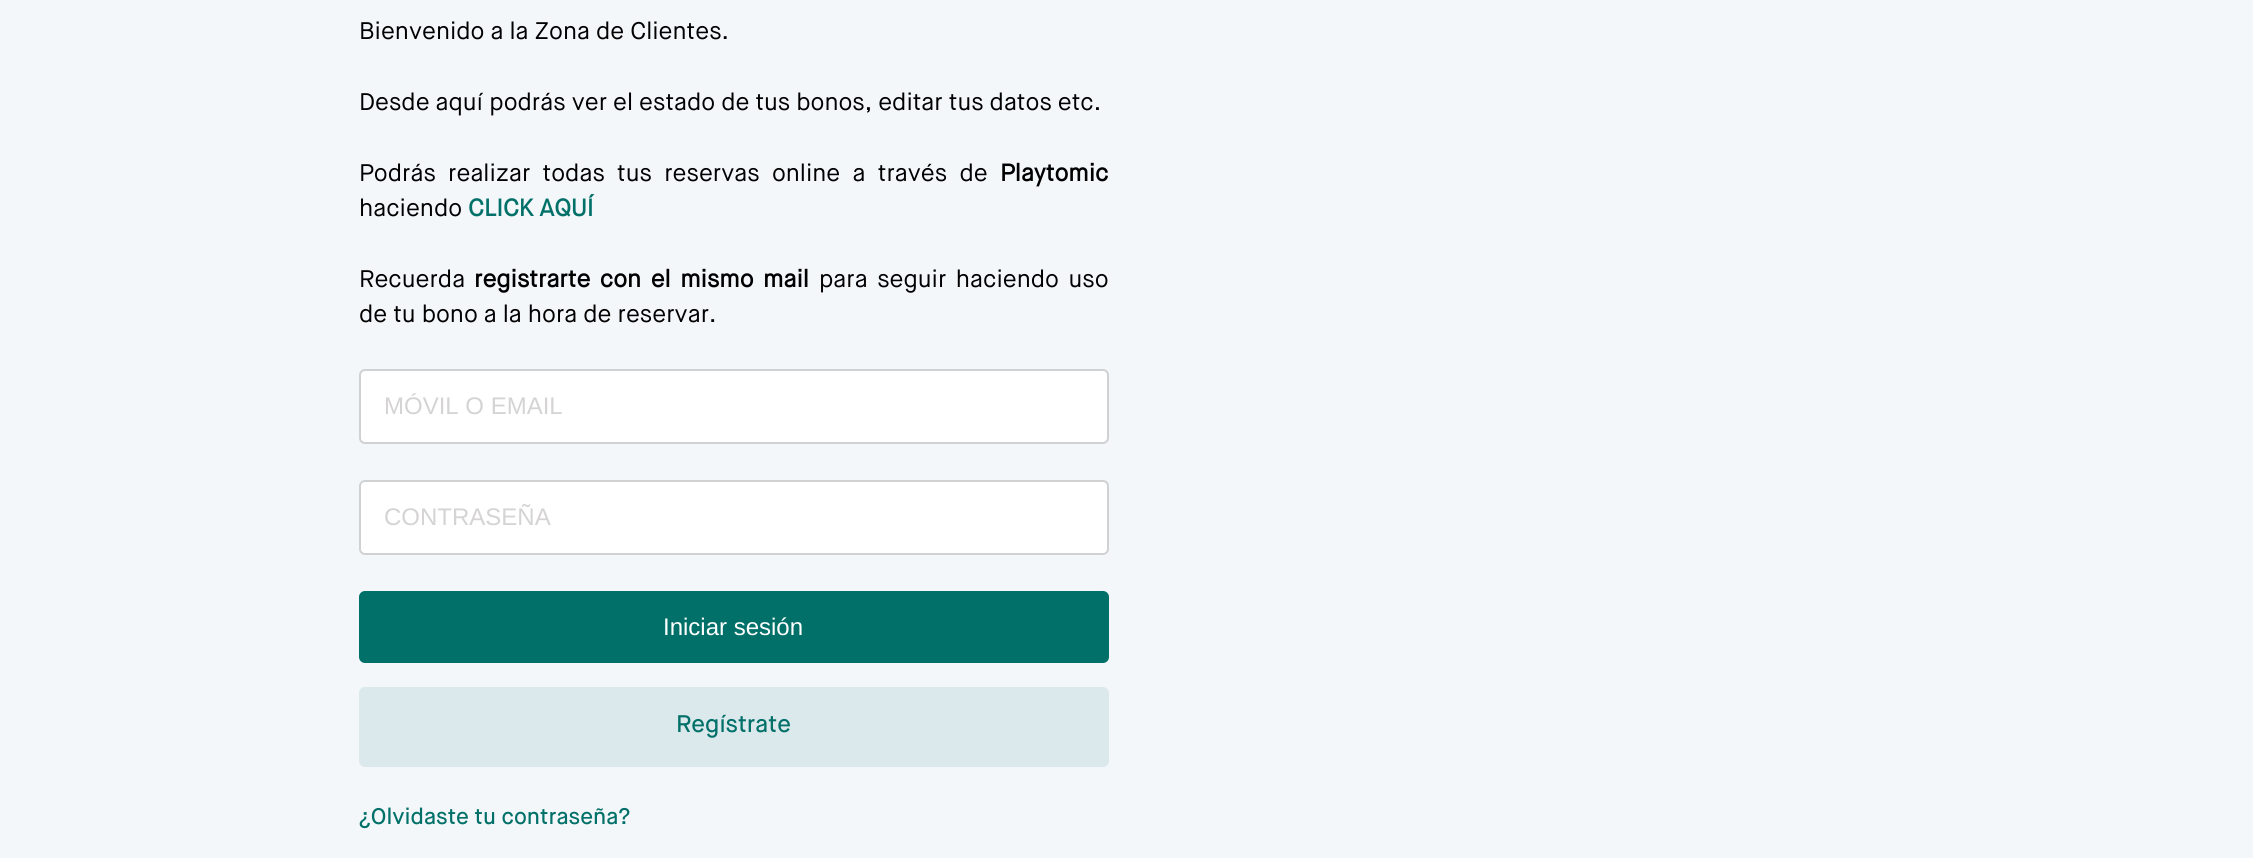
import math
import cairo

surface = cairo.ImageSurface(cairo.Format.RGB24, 2253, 858)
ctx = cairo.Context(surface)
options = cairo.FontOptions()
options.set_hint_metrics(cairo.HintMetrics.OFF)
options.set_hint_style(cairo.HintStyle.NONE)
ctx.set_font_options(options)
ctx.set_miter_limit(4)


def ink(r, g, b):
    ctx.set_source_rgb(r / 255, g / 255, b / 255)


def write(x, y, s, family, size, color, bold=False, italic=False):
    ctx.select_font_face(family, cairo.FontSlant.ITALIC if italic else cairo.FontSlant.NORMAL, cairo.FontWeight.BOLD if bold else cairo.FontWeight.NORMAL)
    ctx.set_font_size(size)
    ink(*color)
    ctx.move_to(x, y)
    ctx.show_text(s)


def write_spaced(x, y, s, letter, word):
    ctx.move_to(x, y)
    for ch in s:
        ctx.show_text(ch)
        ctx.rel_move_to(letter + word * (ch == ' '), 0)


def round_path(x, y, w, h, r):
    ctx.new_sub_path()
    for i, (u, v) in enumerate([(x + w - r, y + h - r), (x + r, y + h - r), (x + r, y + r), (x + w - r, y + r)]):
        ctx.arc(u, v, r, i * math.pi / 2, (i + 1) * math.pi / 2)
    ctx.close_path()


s1 = dict(family="Maison Neue", size=24, color=(0, 0, 0))
s2 = dict(family="Maison Neue", size=24, color=(0, 0, 0), bold=True)
s3 = dict(family="Maison Neue", size=24, color=(1, 112, 105), bold=True)
s4 = dict(family="Liberation Sans", size=24, color=(213, 211, 211))
s5 = dict(family="Liberation Sans", size=24, color=(255, 255, 255))
s6 = dict(family="Maison Neue Medium", size=24, color=(1, 112, 105))
s7 = dict(family="Maison Neue Medium", size=22.5, color=(1, 112, 105))

ink(243, 247, 250)
ctx.paint()
write(359, 39, "Bienvenido a la Zona de Clientes.", **s1)
write(359, 110, "Desde aquí podrás ver el estado de tus bonos, editar tus datos etc.", **s1)
write_spaced(359, 181, "Podrás realizar todas tus reservas online a través de", 0, 6.25)
write(1000, 181, "Playtomic", **s2)
write(359, 216, "haciendo", **s1)
write(468, 216, "CLICK AQUÍ", **s3)
write(359, 287, "Recuerda", **s1)
ctx.select_font_face("Maison Neue", cairo.FontSlant.NORMAL, cairo.FontWeight.BOLD)
write_spaced(474, 287, "registrarte con el mismo mail", 0, 3.5)
ctx.select_font_face("Maison Neue")
write_spaced(819, 287, "para seguir haciendo uso", 0, 3.5)
write(359, 322, "de tu bono a la hora de reservar.", **s1)
ink(255, 255, 255)
round_path(359, 369, 750, 75, 6)
ctx.fill()
round_path(360, 370, 748, 73, 5)
ctx.set_source_rgba(0.533, 0.553, 0.573, 0.4)
ctx.stroke()
write(384, 414, "MÓVIL O EMAIL", **s4)
ink(255, 255, 255)
round_path(359, 480, 750, 75, 6)
ctx.fill()
round_path(360, 481, 748, 73, 5)
ctx.set_source_rgba(0.533, 0.553, 0.573, 0.4)
ctx.stroke()
write(384, 525, "CONTRASEÑA", **s4)
ink(1, 112, 105)
round_path(359, 591, 750, 72, 6)
ctx.fill()
write(663, 635, "Iniciar sesión", **s5)
ink(219, 233, 236)
round_path(359, 687, 750, 80, 6)
ctx.fill()
write(676, 732, "Regístrate", **s6)
write(359, 824, "¿Olvidaste tu contraseña?", **s7)
surface.write_to_png("screenshot.png")
